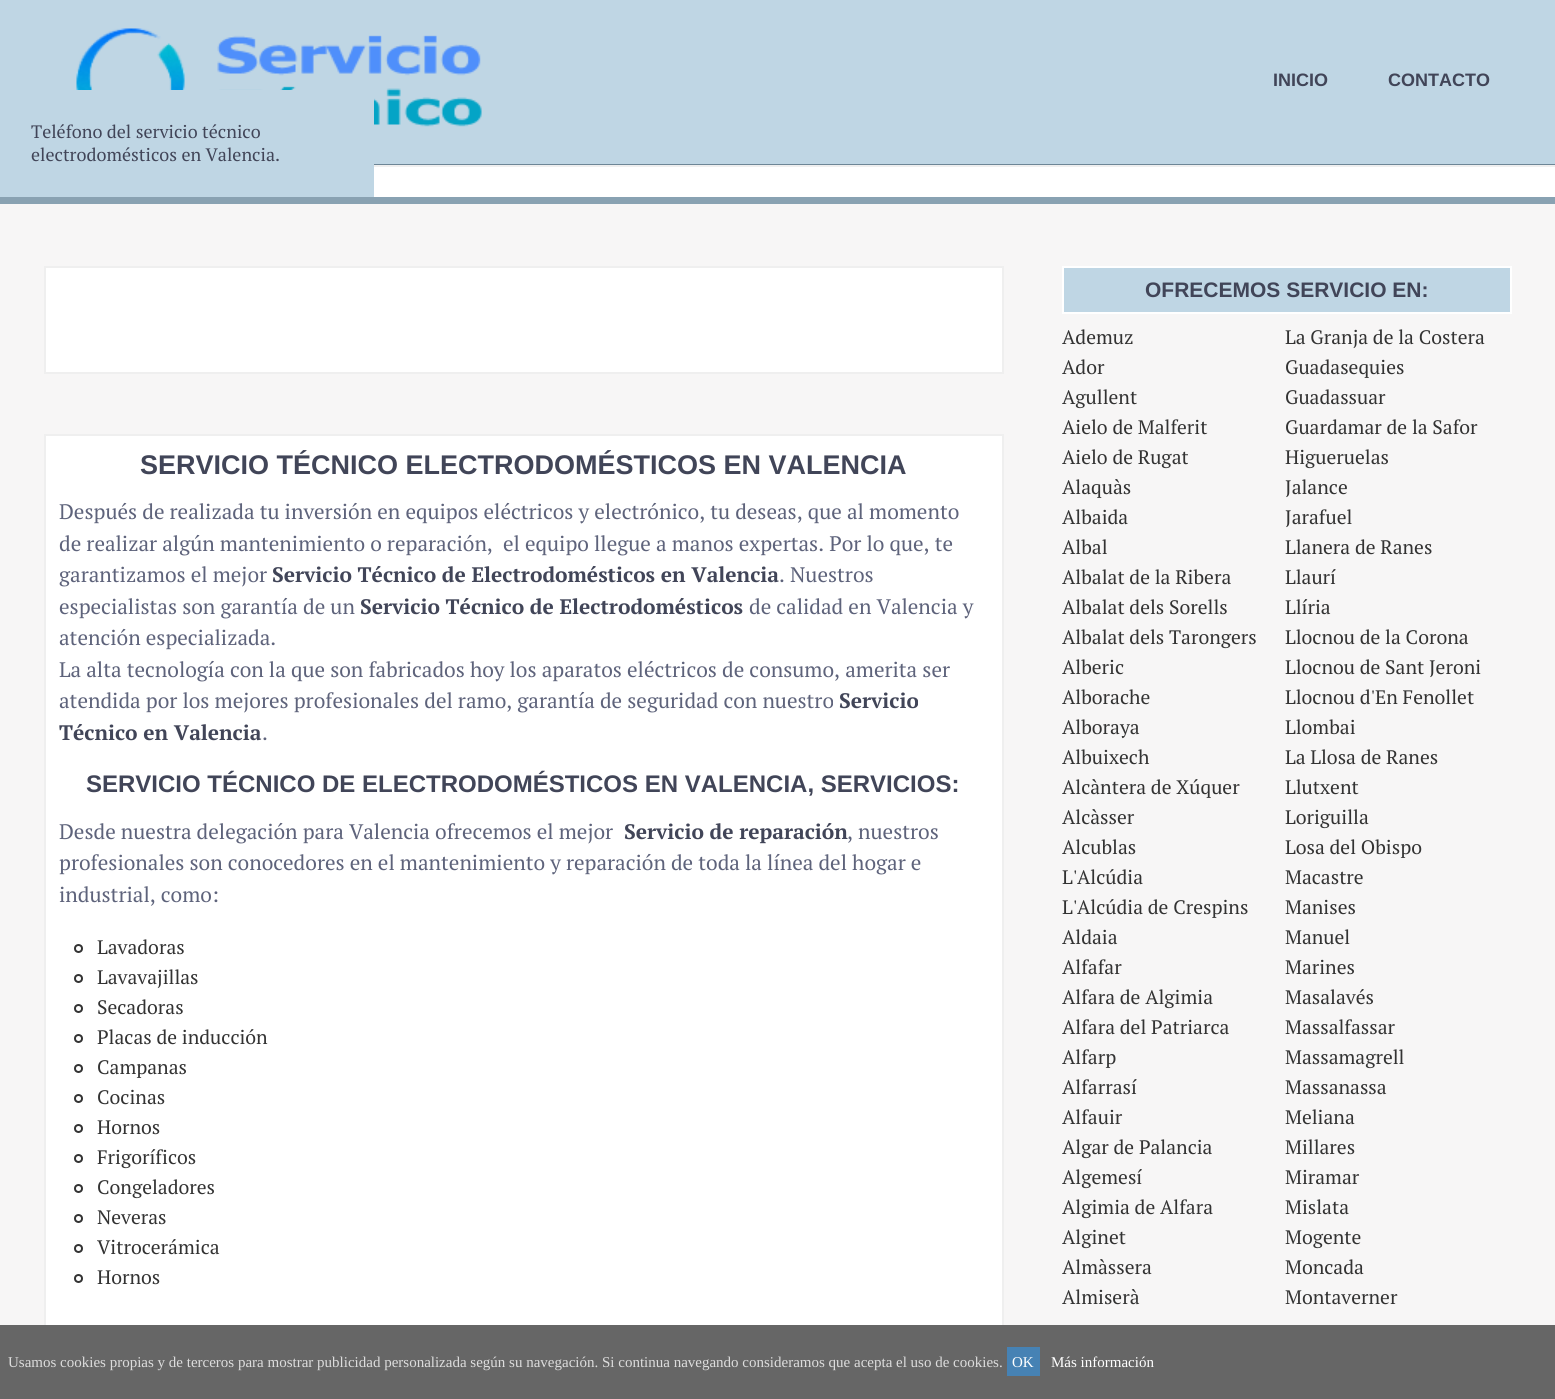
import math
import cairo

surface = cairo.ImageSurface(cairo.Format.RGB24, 1555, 1399)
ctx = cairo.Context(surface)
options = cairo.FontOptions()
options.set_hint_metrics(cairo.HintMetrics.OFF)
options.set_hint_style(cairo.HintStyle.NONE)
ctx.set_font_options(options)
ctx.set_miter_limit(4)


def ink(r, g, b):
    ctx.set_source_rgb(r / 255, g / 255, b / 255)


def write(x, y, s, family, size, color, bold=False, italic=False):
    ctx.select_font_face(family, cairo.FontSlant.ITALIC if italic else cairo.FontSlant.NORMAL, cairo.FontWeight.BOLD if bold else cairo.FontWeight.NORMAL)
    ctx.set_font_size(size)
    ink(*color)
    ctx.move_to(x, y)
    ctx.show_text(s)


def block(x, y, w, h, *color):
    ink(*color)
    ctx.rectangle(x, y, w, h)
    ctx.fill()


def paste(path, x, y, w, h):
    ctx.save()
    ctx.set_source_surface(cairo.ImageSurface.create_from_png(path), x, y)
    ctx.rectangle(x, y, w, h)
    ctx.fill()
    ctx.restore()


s1 = dict(family="Liberation Sans", size=18, color=(65, 69, 88), bold=True)
s2 = dict(family="PT Serif", size=18, color=(65, 69, 88))
s3 = dict(family="Liberation Sans", size=27, color=(65, 69, 88), bold=True)
s4 = dict(family="PT Serif", size=21, color=(94, 99, 123))
s5 = dict(family="PT Serif", size=21, color=(65, 69, 88), bold=True)
s6 = dict(family="Liberation Sans", size=24, color=(65, 69, 88), bold=True)
s7 = dict(family="PT Serif", size=19.5, color=(51, 51, 51))
s8 = dict(family="Liberation Sans", size=21, color=(65, 69, 88), bold=True)
s9 = dict(family="Liberation Serif", size=15, color=(221, 221, 221))
s10 = dict(family="Liberation Serif", size=15, color=(255, 255, 255))

ink(247, 246, 246)
ctx.paint()
block(0, 0, 1555, 164, 191, 214, 228)
block(374, 164, 1181, 1, 109, 134, 150)
paste("pic1.png", 76, 28, 406, 99)
write(1273, 86, "INICIO", **s1)
write(1388, 86, "CONTACTO", **s1)
block(374, 167, 1181, 30, 255, 255, 255)
block(374, 165, 1181, 2, 239, 239, 239)
block(0, 197, 1555, 7, 137, 162, 178)
block(0, 90, 374, 107, 191, 214, 228)
write(31, 138, "Teléfono del servicio técnico", **s2)
write(31, 161, "electrodomésticos en Valencia.", **s2)
ink(255, 255, 255)
ctx.rectangle(45, 267, 958, 106)
ctx.fill_preserve()
ink(239, 239, 239)
ctx.stroke()
block(46, 436, 956, 889, 255, 255, 255)
ctx.rectangle(45, 435, 958, 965)
ink(239, 239, 239)
ctx.stroke()
write(140, 474, "SERVICIO TÉCNICO ELECTRODOMÉSTICOS EN VALENCIA", **s3)
write(59, 519, "Después de realizada tu inversión en equipos eléctricos y electrónico, tu deseas, que al momento", **s4)
write(59, 551, "de realizar algún mantenimiento o reparación,  el equipo llegue a manos expertas. Por lo que, te", **s4)
write(59, 582, "garantizamos el mejor", **s4)
write(272, 582, "Servicio Técnico de Electrodomésticos en Valencia", **s5)
write(779, 582, ". Nuestros", **s4)
write(59, 614, "especialistas son garantía de un", **s4)
write(360, 614, "Servicio Técnico de Electrodomésticos", **s5)
write(749, 614, "de calidad en Valencia y", **s4)
write(59, 645, "atención especializada.", **s4)
write(59, 677, "La alta tecnología con la que son fabricados hoy los aparatos eléctricos de consumo, amerita ser", **s4)
write(59, 708, "atendida por los mejores profesionales del ramo, garantía de seguridad con nuestro", **s4)
write(839, 708, "Servicio", **s5)
write(59, 740, "Técnico en Valencia", **s5)
write(262, 740, ".", **s4)
write(86, 792, "SERVICIO TÉCNICO DE ELECTRODOMÉSTICOS EN VALENCIA, SERVICIOS:", **s6)
write(59, 839, "Desde nuestra delegación para Valencia ofrecemos el mejor", **s4)
write(624, 839, "Servicio de reparación", **s5)
write(847, 839, ", nuestros", **s4)
write(59, 870, "profesionales son conocedores en el mantenimiento y reparación de toda la línea del hogar e", **s4)
write(59, 902, "industrial, como:", **s4)
ctx.new_path()
ctx.arc(78.5, 948.5, 3.5, 0, 2 * math.pi)
ink(51, 51, 51)
ctx.stroke()
write(97, 954, "Lavadoras", **s7)
ctx.new_path()
ctx.arc(78.5, 978.5, 3.5, 0, 2 * math.pi)
ctx.stroke()
write(97, 984, "Lavavajillas", **s7)
ctx.new_path()
ctx.arc(78.5, 1008.5, 3.5, 0, 2 * math.pi)
ctx.stroke()
write(97, 1014, "Secadoras", **s7)
ctx.new_path()
ctx.arc(78.5, 1038.5, 3.5, 0, 2 * math.pi)
ctx.stroke()
write(97, 1044, "Placas de inducción", **s7)
ctx.new_path()
ctx.arc(78.5, 1068.5, 3.5, 0, 2 * math.pi)
ctx.stroke()
write(97, 1074, "Campanas", **s7)
ctx.new_path()
ctx.arc(78.5, 1098.5, 3.5, 0, 2 * math.pi)
ctx.stroke()
write(97, 1104, "Cocinas", **s7)
ctx.new_path()
ctx.arc(78.5, 1128.5, 3.5, 0, 2 * math.pi)
ctx.stroke()
write(97, 1134, "Hornos", **s7)
ctx.new_path()
ctx.arc(78.5, 1158.5, 3.5, 0, 2 * math.pi)
ctx.stroke()
write(97, 1164, "Frigoríficos", **s7)
ctx.new_path()
ctx.arc(78.5, 1188.5, 3.5, 0, 2 * math.pi)
ctx.stroke()
write(97, 1194, "Congeladores", **s7)
ctx.new_path()
ctx.arc(78.5, 1218.5, 3.5, 0, 2 * math.pi)
ctx.stroke()
write(97, 1224, "Neveras", **s7)
ctx.new_path()
ctx.arc(78.5, 1248.5, 3.5, 0, 2 * math.pi)
ctx.stroke()
write(97, 1254, "Vitrocerámica", **s7)
ctx.new_path()
ctx.arc(78.5, 1278.5, 3.5, 0, 2 * math.pi)
ctx.stroke()
write(97, 1284, "Hornos", **s7)
ink(191, 214, 228)
ctx.rectangle(1063, 267, 448, 46)
ctx.fill_preserve()
ink(255, 255, 255)
ctx.stroke()
write(1145, 297, "OFRECEMOS SERVICIO EN:", **s8)
write(1062, 344, "Ademuz", **s7)
write(1062, 374, "Ador", **s7)
write(1062, 404, "Agullent", **s7)
write(1062, 434, "Aielo de Malferit", **s7)
write(1062, 464, "Aielo de Rugat", **s7)
write(1062, 494, "Alaquàs", **s7)
write(1062, 524, "Albaida", **s7)
write(1062, 554, "Albal", **s7)
write(1062, 584, "Albalat de la Ribera", **s7)
write(1062, 614, "Albalat dels Sorells", **s7)
write(1062, 644, "Albalat dels Tarongers", **s7)
write(1062, 674, "Alberic", **s7)
write(1062, 704, "Alborache", **s7)
write(1062, 734, "Alboraya", **s7)
write(1062, 764, "Albuixech", **s7)
write(1062, 794, "Alcàntera de Xúquer", **s7)
write(1062, 824, "Alcàsser", **s7)
write(1062, 854, "Alcublas", **s7)
write(1062, 884, "L'Alcúdia", **s7)
write(1062, 914, "L'Alcúdia de Crespins", **s7)
write(1062, 944, "Aldaia", **s7)
write(1062, 974, "Alfafar", **s7)
write(1062, 1004, "Alfara de Algimia", **s7)
write(1062, 1034, "Alfara del Patriarca", **s7)
write(1062, 1064, "Alfarp", **s7)
write(1062, 1094, "Alfarrasí", **s7)
write(1062, 1124, "Alfauir", **s7)
write(1062, 1154, "Algar de Palancia", **s7)
write(1062, 1184, "Algemesí", **s7)
write(1062, 1214, "Algimia de Alfara", **s7)
write(1062, 1244, "Alginet", **s7)
write(1062, 1274, "Almàssera", **s7)
write(1062, 1304, "Almiserà", **s7)
write(1285, 344, "La Granja de la Costera", **s7)
write(1285, 374, "Guadasequies", **s7)
write(1285, 404, "Guadassuar", **s7)
write(1285, 434, "Guardamar de la Safor", **s7)
write(1285, 464, "Higueruelas", **s7)
write(1285, 494, "Jalance", **s7)
write(1285, 524, "Jarafuel", **s7)
write(1285, 554, "Llanera de Ranes", **s7)
write(1285, 584, "Llaurí", **s7)
write(1285, 614, "Llíria", **s7)
write(1285, 644, "Llocnou de la Corona", **s7)
write(1285, 674, "Llocnou de Sant Jeroni", **s7)
write(1285, 704, "Llocnou d'En Fenollet", **s7)
write(1285, 734, "Llombai", **s7)
write(1285, 764, "La Llosa de Ranes", **s7)
write(1285, 794, "Llutxent", **s7)
write(1285, 824, "Loriguilla", **s7)
write(1285, 854, "Losa del Obispo", **s7)
write(1285, 884, "Macastre", **s7)
write(1285, 914, "Manises", **s7)
write(1285, 944, "Manuel", **s7)
write(1285, 974, "Marines", **s7)
write(1285, 1004, "Masalavés", **s7)
write(1285, 1034, "Massalfassar", **s7)
write(1285, 1064, "Massamagrell", **s7)
write(1285, 1094, "Massanassa", **s7)
write(1285, 1124, "Meliana", **s7)
write(1285, 1154, "Millares", **s7)
write(1285, 1184, "Miramar", **s7)
write(1285, 1214, "Mislata", **s7)
write(1285, 1244, "Mogente", **s7)
write(1285, 1274, "Moncada", **s7)
write(1285, 1304, "Montaverner", **s7)
block(0, 1325, 1555, 74, 102, 102, 102)
write(8, 1367, "Usamos cookies propias y de terceros para mostrar publicidad personalizada según su navegación. Si continua navegando consideramos que acepta el uso de cookies.", **s9)
block(1007, 1347, 33, 29, 70, 130, 180)
write(1012, 1367, "OK", **s10)
write(1051, 1367, "Más información", **s10)
surface.write_to_png("screenshot.png")
